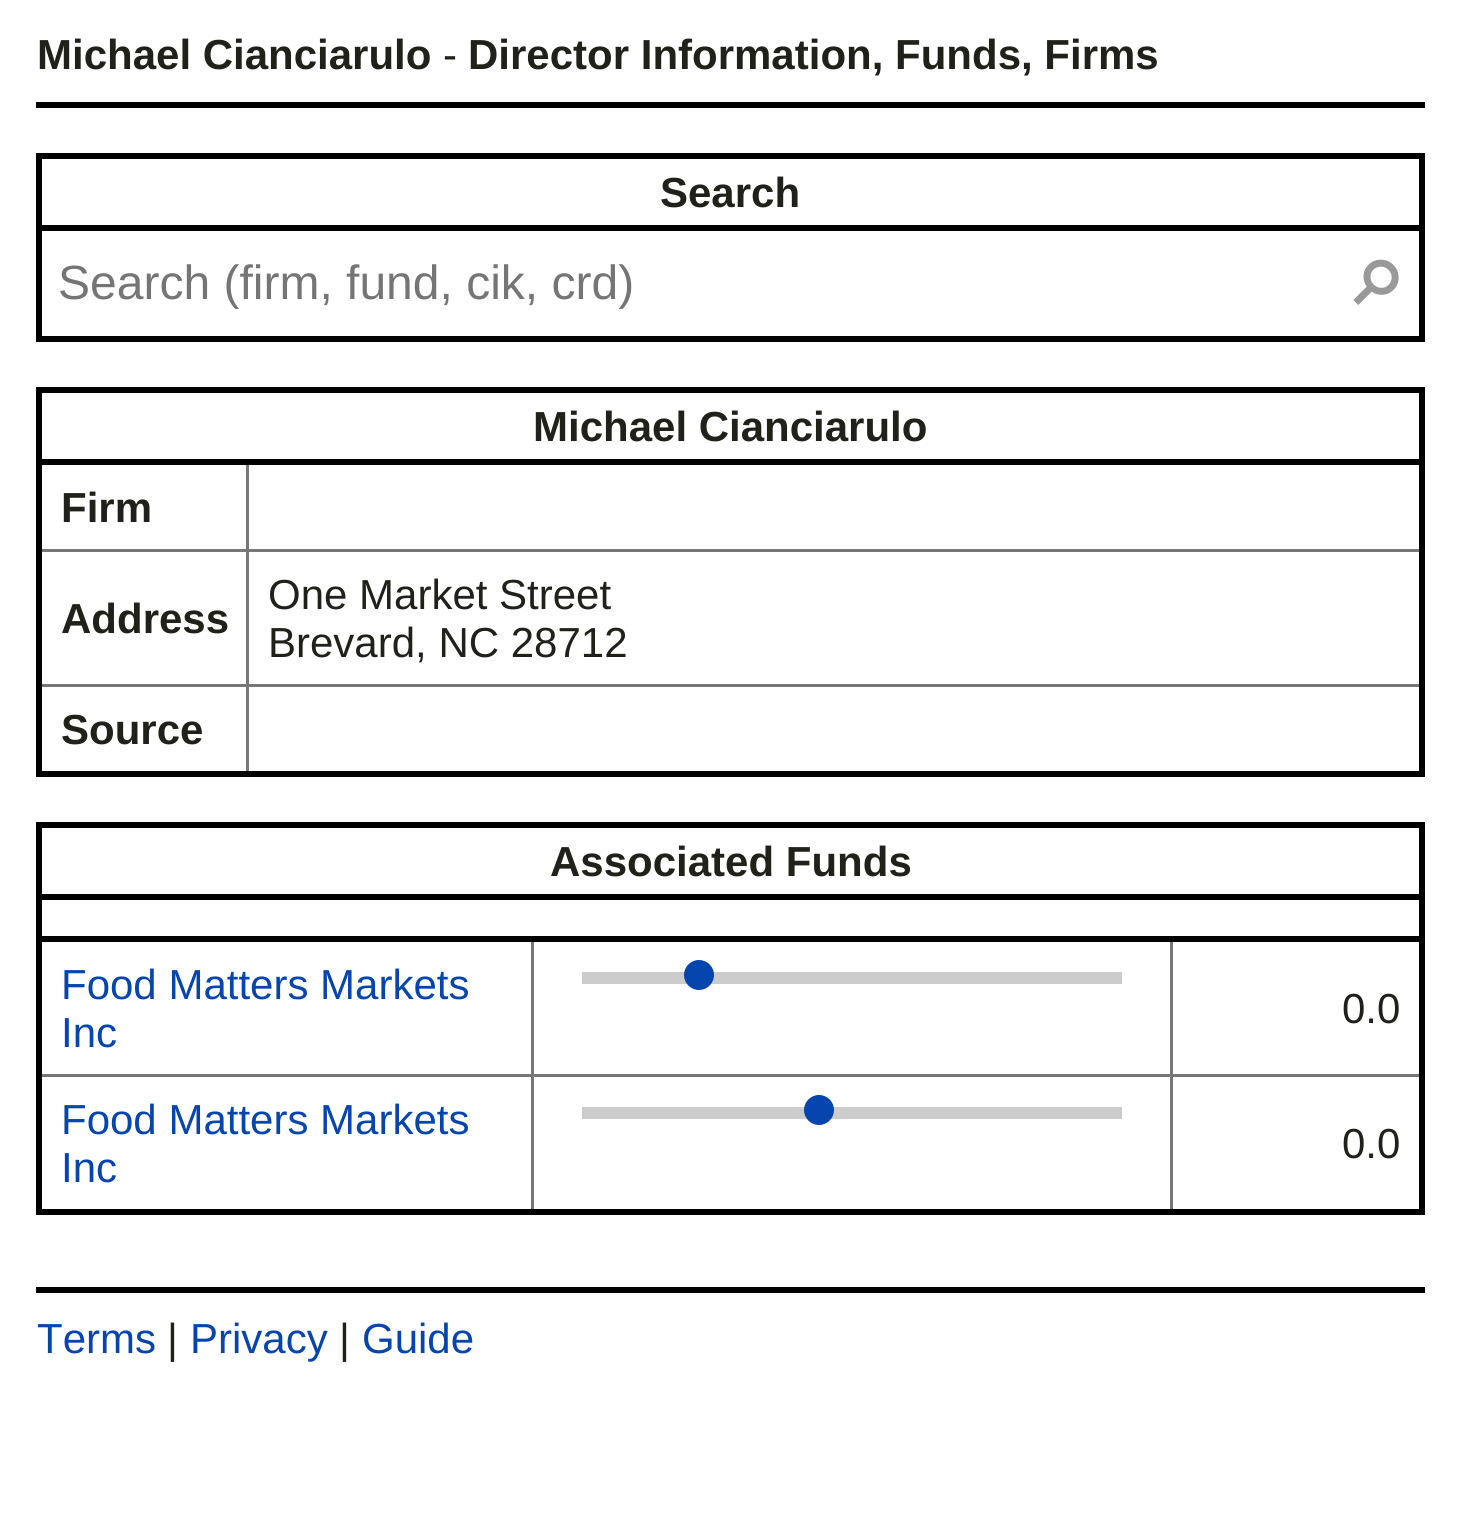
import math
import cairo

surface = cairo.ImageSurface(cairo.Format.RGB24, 1461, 1527)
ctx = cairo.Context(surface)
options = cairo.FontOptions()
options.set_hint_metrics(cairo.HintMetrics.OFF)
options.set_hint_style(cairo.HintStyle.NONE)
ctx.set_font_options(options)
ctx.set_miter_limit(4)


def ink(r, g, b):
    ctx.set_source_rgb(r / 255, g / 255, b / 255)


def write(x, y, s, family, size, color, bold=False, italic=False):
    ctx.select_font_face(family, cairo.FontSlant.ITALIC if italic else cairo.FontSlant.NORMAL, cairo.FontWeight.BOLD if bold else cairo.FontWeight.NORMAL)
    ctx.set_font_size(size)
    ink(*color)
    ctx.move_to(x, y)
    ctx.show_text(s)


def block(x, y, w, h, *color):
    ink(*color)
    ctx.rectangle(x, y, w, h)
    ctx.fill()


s1 = dict(family="Liberation Sans", size=42, color=(32, 33, 26), bold=True)
s2 = dict(family="Liberation Sans", size=42, color=(32, 33, 26))
s3 = dict(family="Liberation Sans", size=48, color=(117, 117, 117))
s4 = dict(family="DejaVu Sans", size=60, color=(153, 153, 153), bold=True)
s5 = dict(family="Liberation Sans", size=42, color=(6, 69, 173))

ink(255, 255, 255)
ctx.paint()
block(36, 102, 1389, 6, 0, 0, 0)
write(37, 69, "Michael Cianciarulo", **s1)
write(443, 69, "-", **s2)
write(468, 69, "Director Information, Funds, Firms", **s1)
block(36, 153, 1389, 6, 0, 0, 0)
block(1419, 153, 6, 189, 0, 0, 0)
block(36, 336, 1389, 6, 0, 0, 0)
block(36, 153, 6, 189, 0, 0, 0)
block(36, 225, 1389, 6, 0, 0, 0)
write(660, 207, "Search", **s1)
write(58, 299, "Search (firm, fund, cik, crd)", **s3)
ctx.save()
ctx.translate(1345, 281)
ctx.rotate(45 * math.pi / 180)
write(0, 0, "⚲", **s4)
ctx.restore()
block(36, 387, 1389, 6, 0, 0, 0)
block(246, 549, 1176, 3, 119, 119, 119)
block(246, 684, 1176, 3, 119, 119, 119)
block(1419, 387, 6, 390, 0, 0, 0)
block(246, 684, 3, 93, 119, 119, 119)
block(36, 771, 1389, 6, 0, 0, 0)
block(39, 684, 210, 3, 119, 119, 119)
block(246, 549, 3, 138, 119, 119, 119)
block(39, 549, 210, 3, 119, 119, 119)
block(36, 387, 6, 390, 0, 0, 0)
block(246, 462, 3, 90, 119, 119, 119)
block(36, 459, 1389, 6, 0, 0, 0)
write(533, 441, "Michael Cianciarulo", **s1)
write(61, 522, "Firm", **s1)
write(61, 633, "Address", **s1)
write(268, 609, "One Market Street", **s2)
write(268, 657, "Brevard, NC 28712", **s2)
write(61, 744, "Source", **s1)
block(36, 822, 1389, 6, 0, 0, 0)
block(1170, 1074, 252, 3, 119, 119, 119)
block(1419, 822, 6, 393, 0, 0, 0)
block(1170, 1074, 3, 141, 119, 119, 119)
block(531, 1074, 642, 3, 119, 119, 119)
block(531, 1074, 3, 141, 119, 119, 119)
block(36, 1209, 1389, 6, 0, 0, 0)
block(39, 1074, 495, 3, 119, 119, 119)
block(36, 822, 6, 393, 0, 0, 0)
write(550, 876, "Associated Funds", **s1)
block(36, 894, 1389, 6, 0, 0, 0)
block(531, 939, 3, 138, 119, 119, 119)
block(1170, 939, 3, 138, 119, 119, 119)
block(36, 936, 1389, 6, 0, 0, 0)
write(61, 999, "Food Matters Markets", **s5)
write(61, 1047, "Inc", **s5)
block(582, 972, 540, 12, 204, 204, 204)
ink(6, 69, 173)
ctx.new_path()
ctx.arc(699, 975, 15, 0, 2 * math.pi)
ctx.fill()
write(1342, 1023, "0.0", **s2)
write(61, 1134, "Food Matters Markets", **s5)
write(61, 1182, "Inc", **s5)
block(582, 1107, 540, 12, 204, 204, 204)
ink(6, 69, 173)
ctx.new_path()
ctx.arc(819, 1110, 15, 0, 2 * math.pi)
ctx.fill()
write(1342, 1158, "0.0", **s2)
block(36, 1287, 1389, 6, 0, 0, 0)
write(37, 1353, "Terms", **s5)
write(167, 1353, "|", **s2)
write(190, 1353, "Privacy", **s5)
write(339, 1353, "|", **s2)
write(362, 1353, "Guide", **s5)
surface.write_to_png("screenshot.png")
